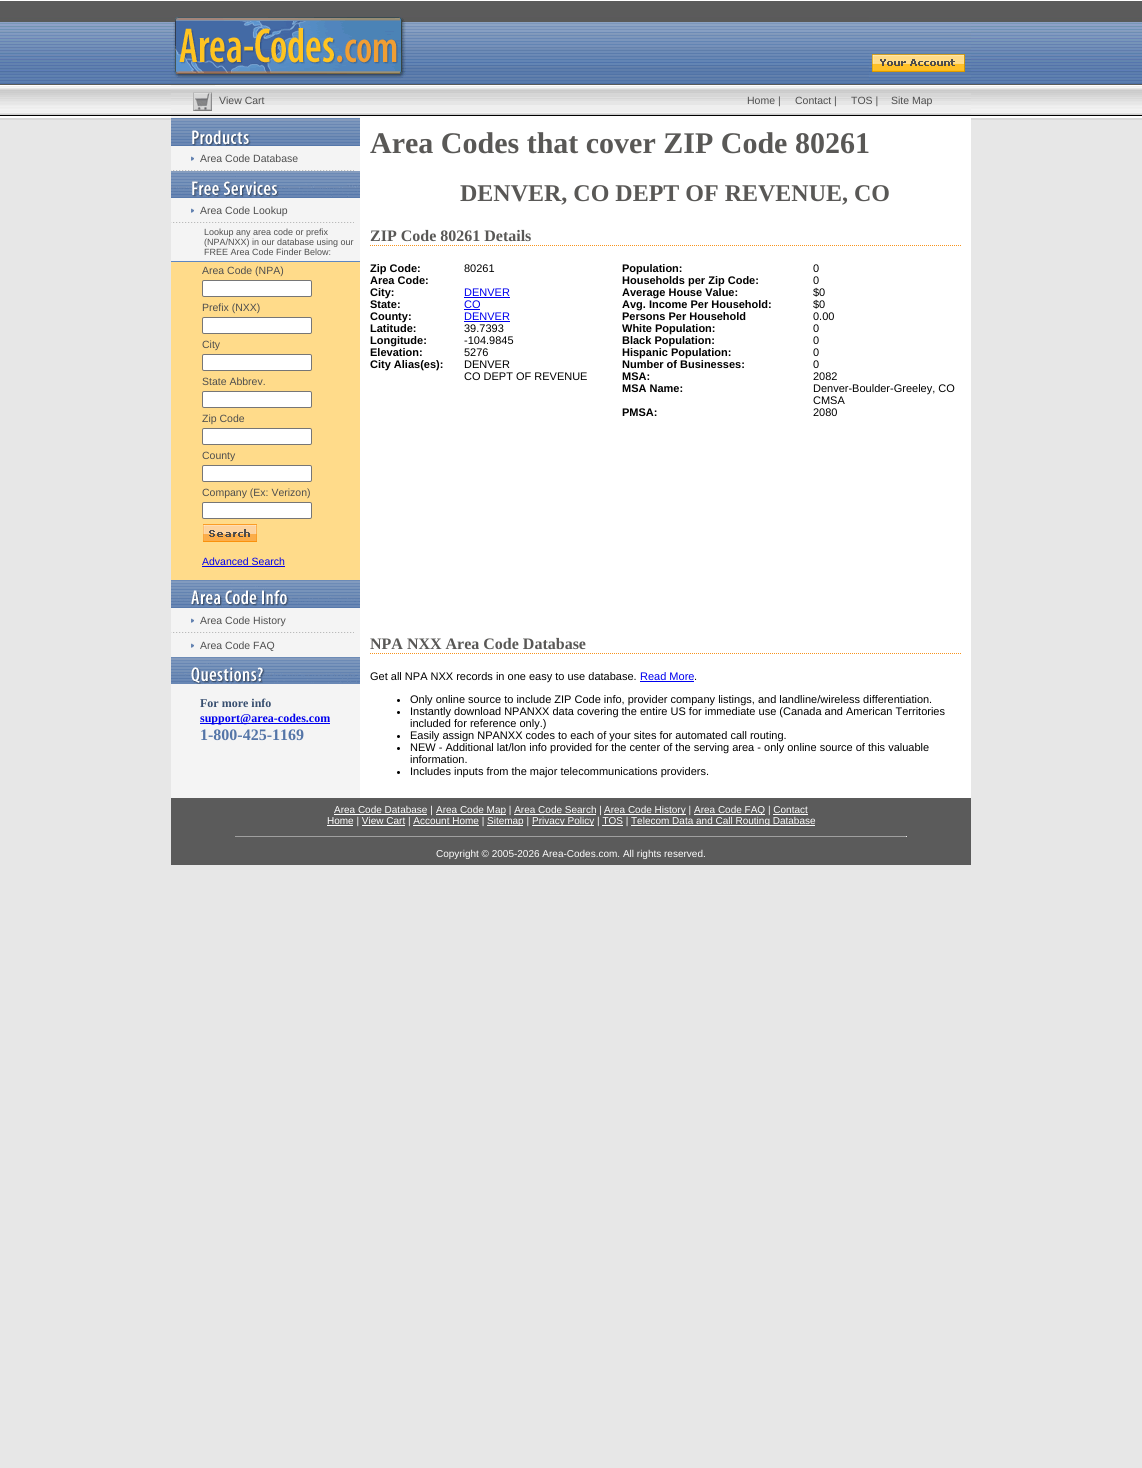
import math
import cairo

surface = cairo.ImageSurface(cairo.Format.RGB24, 1142, 1468)
ctx = cairo.Context(surface)
options = cairo.FontOptions()
options.set_hint_metrics(cairo.HintMetrics.OFF)
options.set_hint_style(cairo.HintStyle.NONE)
ctx.set_font_options(options)
ctx.set_miter_limit(4)


def ink(r, g, b):
    ctx.set_source_rgb(r / 255, g / 255, b / 255)


def write(x, y, s, family, size, color, bold=False, italic=False):
    ctx.select_font_face(family, cairo.FontSlant.ITALIC if italic else cairo.FontSlant.NORMAL, cairo.FontWeight.BOLD if bold else cairo.FontWeight.NORMAL)
    ctx.set_font_size(size)
    ink(*color)
    ctx.move_to(x, y)
    ctx.show_text(s)


def block(x, y, w, h, *color):
    ink(*color)
    ctx.rectangle(x, y, w, h)
    ctx.fill()


def round_path(x, y, w, h, r):
    ctx.new_sub_path()
    for i, (u, v) in enumerate([(x + w - r, y + h - r), (x + r, y + h - r), (x + r, y + r), (x + w - r, y + r)]):
        ctx.arc(u, v, r, i * math.pi / 2, (i + 1) * math.pi / 2)
    ctx.close_path()


def paste(path, x, y, w, h):
    ctx.save()
    ctx.set_source_surface(cairo.ImageSurface.create_from_png(path), x, y)
    ctx.rectangle(x, y, w, h)
    ctx.fill()
    ctx.restore()


s1 = dict(family="Liberation Sans", size=10.5, color=(78, 78, 78))
s2 = dict(family="Liberation Sans", size=9, color=(78, 78, 78))
s3 = dict(family="Liberation Sans", size=10.5, color=(0, 0, 238))
s4 = dict(family="Liberation Serif", size=12, color=(55, 78, 111), bold=True)
s5 = dict(family="Liberation Serif", size=12, color=(0, 0, 238), bold=True)
s6 = dict(family="Liberation Serif", size=16, color=(84, 117, 167), bold=True)
s7 = dict(family="Liberation Serif", size=30, color=(89, 88, 86), bold=True)
s8 = dict(family="Liberation Serif", size=24, color=(89, 88, 86), bold=True)
s9 = dict(family="Liberation Serif", size=16, color=(89, 88, 86), bold=True)
s10 = dict(family="Liberation Sans", size=11, color=(0, 0, 0), bold=True)
s11 = dict(family="Liberation Sans", size=11, color=(0, 0, 0))
s12 = dict(family="Liberation Sans", size=11, color=(0, 0, 238))
s13 = dict(family="Liberation Sans", size=10, color=(255, 255, 255))

ink(231, 231, 231)
ctx.paint()
paste("pic1.png", 0, 0, 1142, 120)
paste("pic2.png", 171, 17, 698, 65)
paste("pic3.png", 869, 23, 102, 27)
paste("pic4.png", 869, 54, 102, 28)
paste("pic5.png", 171, 93, 800, 22)
paste("pic6.png", 171, 85, 44, 26)
write(219, 104, "View Cart", **s1)
write(747, 104, "Home |", **s1)
write(795, 104, "Contact |", **s1)
write(851, 104, "TOS |", **s1)
write(891, 104, "Site Map", **s1)
block(171, 116, 189, 682, 244, 244, 244)
paste("pic7.png", 171, 118, 189, 28)
paste("pic8.png", 191, 156, 4, 5)
write(200, 162, "Area Code Database", **s1)
paste("pic9.png", 171, 170, 183, 1)
paste("pic10.png", 171, 171, 189, 27)
paste("pic8.png", 191, 208, 4, 5)
write(200, 214, "Area Code Lookup", **s1)
paste("pic9.png", 171, 222, 183, 1)
write(204, 235, "Lookup any area code or prefix", **s2)
write(204, 245, "(NPA/NXX) in our database using our", **s2)
write(204, 255, "FREE Area Code Finder Below:", **s2)
block(171, 261, 189, 1, 95, 135, 194)
block(171, 262, 189, 318, 255, 219, 138)
write(202, 274, "Area Code (NPA)", **s1)
ink(255, 255, 255)
round_path(202.5, 280.5, 109, 16, 1.5)
ctx.fill_preserve()
ink(118, 118, 118)
ctx.set_line_width(1)
ctx.stroke()
write(202, 311, "Prefix (NXX)", **s1)
ink(255, 255, 255)
round_path(202.5, 317.5, 109, 16, 1.5)
ctx.fill_preserve()
ink(118, 118, 118)
ctx.stroke()
write(202, 348, "City", **s1)
ink(255, 255, 255)
round_path(202.5, 354.5, 109, 16, 1.5)
ctx.fill_preserve()
ink(118, 118, 118)
ctx.stroke()
write(202, 385, "State Abbrev.", **s1)
ink(255, 255, 255)
round_path(202.5, 391.5, 109, 16, 1.5)
ctx.fill_preserve()
ink(118, 118, 118)
ctx.stroke()
write(202, 422, "Zip Code", **s1)
ink(255, 255, 255)
round_path(202.5, 428.5, 109, 16, 1.5)
ctx.fill_preserve()
ink(118, 118, 118)
ctx.stroke()
write(202, 459, "County", **s1)
ink(255, 255, 255)
round_path(202.5, 465.5, 109, 16, 1.5)
ctx.fill_preserve()
ink(118, 118, 118)
ctx.stroke()
write(202, 496, "Company (Ex: Verizon)", **s1)
ink(255, 255, 255)
round_path(202.5, 502.5, 109, 16, 1.5)
ctx.fill_preserve()
ink(118, 118, 118)
ctx.stroke()
paste("pic11.png", 203, 524, 54, 18)
write(202, 565, "Advanced Search", **s3)
block(202, 566, 83, 1, 0, 0, 238)
paste("pic12.png", 171, 580, 189, 28)
paste("pic8.png", 191, 618, 4, 5)
write(200, 624, "Area Code History", **s1)
paste("pic9.png", 171, 632, 183, 1)
paste("pic8.png", 191, 643, 4, 5)
write(200, 649, "Area Code FAQ", **s1)
paste("pic13.png", 171, 657, 189, 27)
write(200, 707, "For more info", **s4)
block(200, 723, 130, 1, 0, 0, 238)
write(200, 722, "support@area-codes.com", **s5)
write(200, 740, "1-800-425-1169", **s6)
block(360, 118, 611, 680, 255, 255, 255)
write(370, 153, "Area Codes that cover ZIP Code 80261", **s7)
write(460, 201, "DENVER, CO DEPT OF REVENUE, CO", **s8)
ctx.new_path()
ctx.move_to(370, 245.5)
ctx.line_to(961, 245.5)
ink(247, 148, 29)
ctx.set_dash([1, 1])
ctx.stroke()
write(370, 241, "ZIP Code 80261 Details", **s9)
write(370, 272, "Zip Code:", **s10)
write(464, 272, "80261", **s11)
write(622, 272, "Population:", **s10)
write(813, 272, "0", **s11)
write(370, 284, "Area Code:", **s10)
write(622, 284, "Households per Zip Code:", **s10)
write(813, 284, "0", **s11)
write(370, 296, "City:", **s10)
write(464, 296, "DENVER", **s12)
block(464, 297, 46, 1, 0, 0, 238)
write(622, 296, "Average House Value:", **s10)
write(813, 296, "$0", **s11)
write(370, 308, "State:", **s10)
write(464, 308, "CO", **s12)
block(464, 309, 16, 1, 0, 0, 238)
write(622, 308, "Avg. Income Per Household:", **s10)
write(813, 308, "$0", **s11)
write(370, 320, "County:", **s10)
write(464, 320, "DENVER", **s12)
block(464, 321, 46, 1, 0, 0, 238)
write(622, 320, "Persons Per Household", **s10)
write(813, 320, "0.00", **s11)
write(370, 332, "Latitude:", **s10)
write(464, 332, "39.7393", **s11)
write(622, 332, "White Population:", **s10)
write(813, 332, "0", **s11)
write(370, 344, "Longitude:", **s10)
write(464, 344, "-104.9845", **s11)
write(622, 344, "Black Population:", **s10)
write(813, 344, "0", **s11)
write(370, 356, "Elevation:", **s10)
write(464, 356, "5276", **s11)
write(622, 356, "Hispanic Population:", **s10)
write(813, 356, "0", **s11)
write(370, 368, "City Alias(es):", **s10)
write(464, 368, "DENVER", **s11)
write(464, 380, "CO DEPT OF REVENUE", **s11)
write(622, 368, "Number of Businesses:", **s10)
write(813, 368, "0", **s11)
write(622, 380, "MSA:", **s10)
write(813, 380, "2082", **s11)
write(622, 392, "MSA Name:", **s10)
write(813, 392, "Denver-Boulder-Greeley, CO", **s11)
write(813, 404, "CMSA", **s11)
write(622, 416, "PMSA:", **s10)
write(813, 416, "2080", **s11)
ctx.new_path()
ctx.move_to(370, 653.5)
ctx.line_to(961, 653.5)
ink(247, 148, 29)
ctx.stroke()
write(370, 649, "NPA NXX Area Code Database", **s9)
write(370, 680, "Get all NPA NXX records in one easy to use database.", **s11)
write(640, 680, "Read More", **s12)
block(640, 681, 54, 1, 0, 0, 238)
write(694, 680, ".", **s11)
ctx.new_path()
ctx.arc(398.5, 700.5, 1.5, 0, 2 * math.pi)
ctx.fill()
write(410, 703, "Only online source to include ZIP Code info, provider company listings, and landline/wireless differentiation.", **s11)
ctx.new_path()
ctx.arc(398.5, 712.5, 1.5, 0, 2 * math.pi)
ctx.fill()
write(410, 715, "Instantly download NPANXX data covering the entire US for immediate use (Canada and American Territories", **s11)
write(410, 727, "included for reference only.)", **s11)
ctx.new_path()
ctx.arc(398.5, 736.5, 1.5, 0, 2 * math.pi)
ctx.fill()
write(410, 739, "Easily assign NPANXX codes to each of your sites for automated call routing.", **s11)
ctx.new_path()
ctx.arc(398.5, 748.5, 1.5, 0, 2 * math.pi)
ctx.fill()
write(410, 751, "NEW - Additional lat/lon info provided for the center of the serving area - only online source of this valuable", **s11)
write(410, 763, "information.", **s11)
ctx.new_path()
ctx.arc(398.5, 772.5, 1.5, 0, 2 * math.pi)
ctx.fill()
write(410, 775, "Includes inputs from the major telecommunications providers.", **s11)
block(171, 798, 800, 67, 91, 91, 91)
block(334, 814, 93, 1, 255, 255, 255)
write(334, 813, "Area Code Database |", **s13)
block(436, 814, 70, 1, 255, 255, 255)
write(436, 813, "Area Code Map | Area Code Search |", **s13)
block(604, 814, 82, 1, 255, 255, 255)
write(604, 813, "Area Code History |", **s13)
block(694, 814, 71, 1, 255, 255, 255)
write(694, 813, "Area Code FAQ | Contact", **s13)
block(514, 814, 82, 1, 255, 255, 255)
block(773, 814, 35, 1, 255, 255, 255)
block(327, 825, 26, 1, 255, 255, 255)
write(327, 824, "Home | View Cart | Account Home |", **s13)
block(487, 825, 36, 1, 255, 255, 255)
write(487, 824, "Sitemap |", **s13)
block(532, 825, 62, 1, 255, 255, 255)
write(532, 824, "Privacy Policy | TOS |", **s13)
block(631, 825, 184, 1, 255, 255, 255)
write(631, 824, "Telecom Data and Call Routing Database", **s13)
block(362, 825, 43, 1, 255, 255, 255)
block(413, 825, 66, 1, 255, 255, 255)
block(602, 825, 21, 1, 255, 255, 255)
block(235, 836, 672, 1, 159, 159, 159)
block(906, 836, 1, 1, 238, 238, 238)
write(436, 857, "Copyright © 2005-2026 Area-Codes.com. All rights reserved.", **s13)
surface.write_to_png("screenshot.png")
